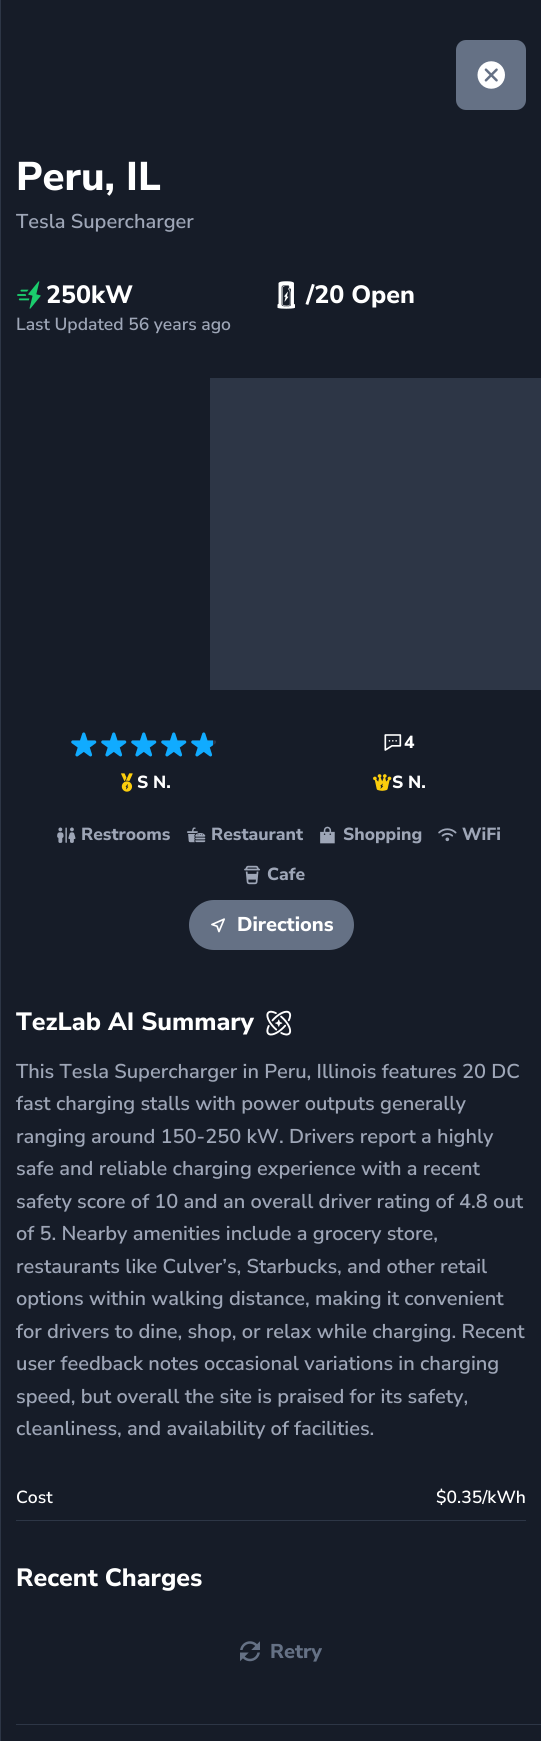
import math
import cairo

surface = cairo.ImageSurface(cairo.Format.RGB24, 541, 1741)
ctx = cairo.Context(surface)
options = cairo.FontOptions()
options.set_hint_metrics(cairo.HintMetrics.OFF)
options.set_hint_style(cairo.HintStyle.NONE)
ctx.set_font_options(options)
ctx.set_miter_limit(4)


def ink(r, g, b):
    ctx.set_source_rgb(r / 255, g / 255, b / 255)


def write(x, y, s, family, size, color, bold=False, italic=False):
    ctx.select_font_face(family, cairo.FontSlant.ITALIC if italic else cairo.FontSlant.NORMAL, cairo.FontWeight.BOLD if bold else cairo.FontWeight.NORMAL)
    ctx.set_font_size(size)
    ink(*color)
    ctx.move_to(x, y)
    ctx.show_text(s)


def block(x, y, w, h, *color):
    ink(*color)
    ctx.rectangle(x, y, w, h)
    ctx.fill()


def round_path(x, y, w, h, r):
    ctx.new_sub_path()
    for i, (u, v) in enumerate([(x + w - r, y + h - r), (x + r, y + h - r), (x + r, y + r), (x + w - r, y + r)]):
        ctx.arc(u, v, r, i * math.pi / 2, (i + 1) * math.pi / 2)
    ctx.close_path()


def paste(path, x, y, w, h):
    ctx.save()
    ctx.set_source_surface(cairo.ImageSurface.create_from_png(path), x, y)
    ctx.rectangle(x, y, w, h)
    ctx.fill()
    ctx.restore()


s1 = dict(family="Nunito Sans ExtraBold", size=40, color=(255, 255, 255))
s2 = dict(family="Nunito Sans SemiBold", size=20, color=(158, 166, 183))
s3 = dict(family="Nunito Sans ExtraBold", size=25, color=(255, 255, 255))
s4 = dict(family="Nunito Sans SemiBold", size=17.5, color=(158, 166, 183))
s5 = dict(family="Nunito Sans ExtraBold", size=17.5, color=(255, 255, 255))
s6 = dict(family="Nunito Sans ExtraBold", size=17.5, color=(158, 166, 183))
s7 = dict(family="Nunito Sans ExtraBold", size=20, color=(255, 255, 255))
s8 = dict(family="Nunito Sans SemiBold", size=17.5, color=(255, 255, 255))
s9 = dict(family="Nunito Sans ExtraBold", size=20, color=(101, 113, 133))

ink(22, 28, 40)
ctx.paint()
block(0, 0, 1, 1741, 45, 54, 70)
ink(101, 113, 133)
round_path(456, 40, 70, 70, 10)
ctx.fill()
paste("pic1.png", 477, 61, 28, 28)
write(16, 190, "Peru, IL", **s1)
write(16, 228, "Tesla Supercharger", **s2)
paste("pic2.png", 17, 281, 24, 28)
write(46, 303, "250kW", **s3)
paste("pic3.png", 277, 281, 18, 28)
write(306, 303, "/20 Open", **s3)
write(16, 330, "Last Updated 56 years ago", **s4)
block(210, 378, 331, 312, 45, 54, 70)
paste("pic4.png", 71, 732, 26, 25)
paste("pic4.png", 101, 732, 26, 25)
paste("pic4.png", 131, 732, 26, 25)
paste("pic4.png", 161, 732, 26, 25)
paste("pic5.png", 191, 732, 25, 25)
paste("pic6.png", 384, 734, 18, 17)
write(404, 748, "4", **s5)
paste("pic7.png", 121, 773, 12, 19)
write(137, 788, "S N.", **s5)
paste("pic8.png", 373, 774, 19, 17)
write(392, 788, "S N.", **s5)
paste("pic9.png", 57, 827, 19, 16)
write(81, 840, "Restrooms", **s6)
paste("pic10.png", 187, 827, 19, 16)
write(211, 840, "Restaurant", **s6)
paste("pic11.png", 320, 826, 15, 18)
write(343, 840, "Shopping", **s6)
paste("pic12.png", 438, 828, 19, 14)
write(462, 840, "WiFi", **s6)
paste("pic13.png", 244, 865, 17, 20)
write(267, 880, "Cafe", **s6)
ink(101, 113, 133)
round_path(189, 900, 165, 50, 25)
ctx.fill()
paste("pic14.png", 211, 918, 14, 15)
write(237, 931, "Directions", **s7)
write(16, 1030, "TezLab AI Summary", **s3)
paste("pic15.png", 266, 1010, 26, 26)
write(16, 1078, "This Tesla Supercharger in Peru, Illinois features 20 DC", **s2)
write(16, 1110, "fast charging stalls with power outputs generally", **s2)
write(16, 1143, "ranging around 150-250 kW. Drivers report a highly", **s2)
write(16, 1175, "safe and reliable charging experience with a recent", **s2)
write(16, 1208, "safety score of 10 and an overall driver rating of 4.8 out", **s2)
write(16, 1240, "of 5. Nearby amenities include a grocery store,", **s2)
write(16, 1273, "restaurants like Culver’s, Starbucks, and other retail", **s2)
write(16, 1305, "options within walking distance, making it convenient", **s2)
write(16, 1338, "for drivers to dine, shop, or relax while charging. Recent", **s2)
write(16, 1370, "user feedback notes occasional variations in charging", **s2)
write(16, 1403, "speed, but overall the site is praised for its safety,", **s2)
write(16, 1435, "cleanliness, and availability of facilities.", **s2)
write(16, 1503, "Cost", **s8)
write(436, 1503, "$0.35/kWh", **s8)
block(16, 1520, 510, 1, 45, 54, 70)
block(16, 1724, 525, 1, 45, 54, 70)
write(16, 1586, "Recent Charges", **s3)
paste("pic16.png", 240, 1641, 20, 21)
write(270, 1658, "Retry", **s9)
surface.write_to_png("screenshot.png")
